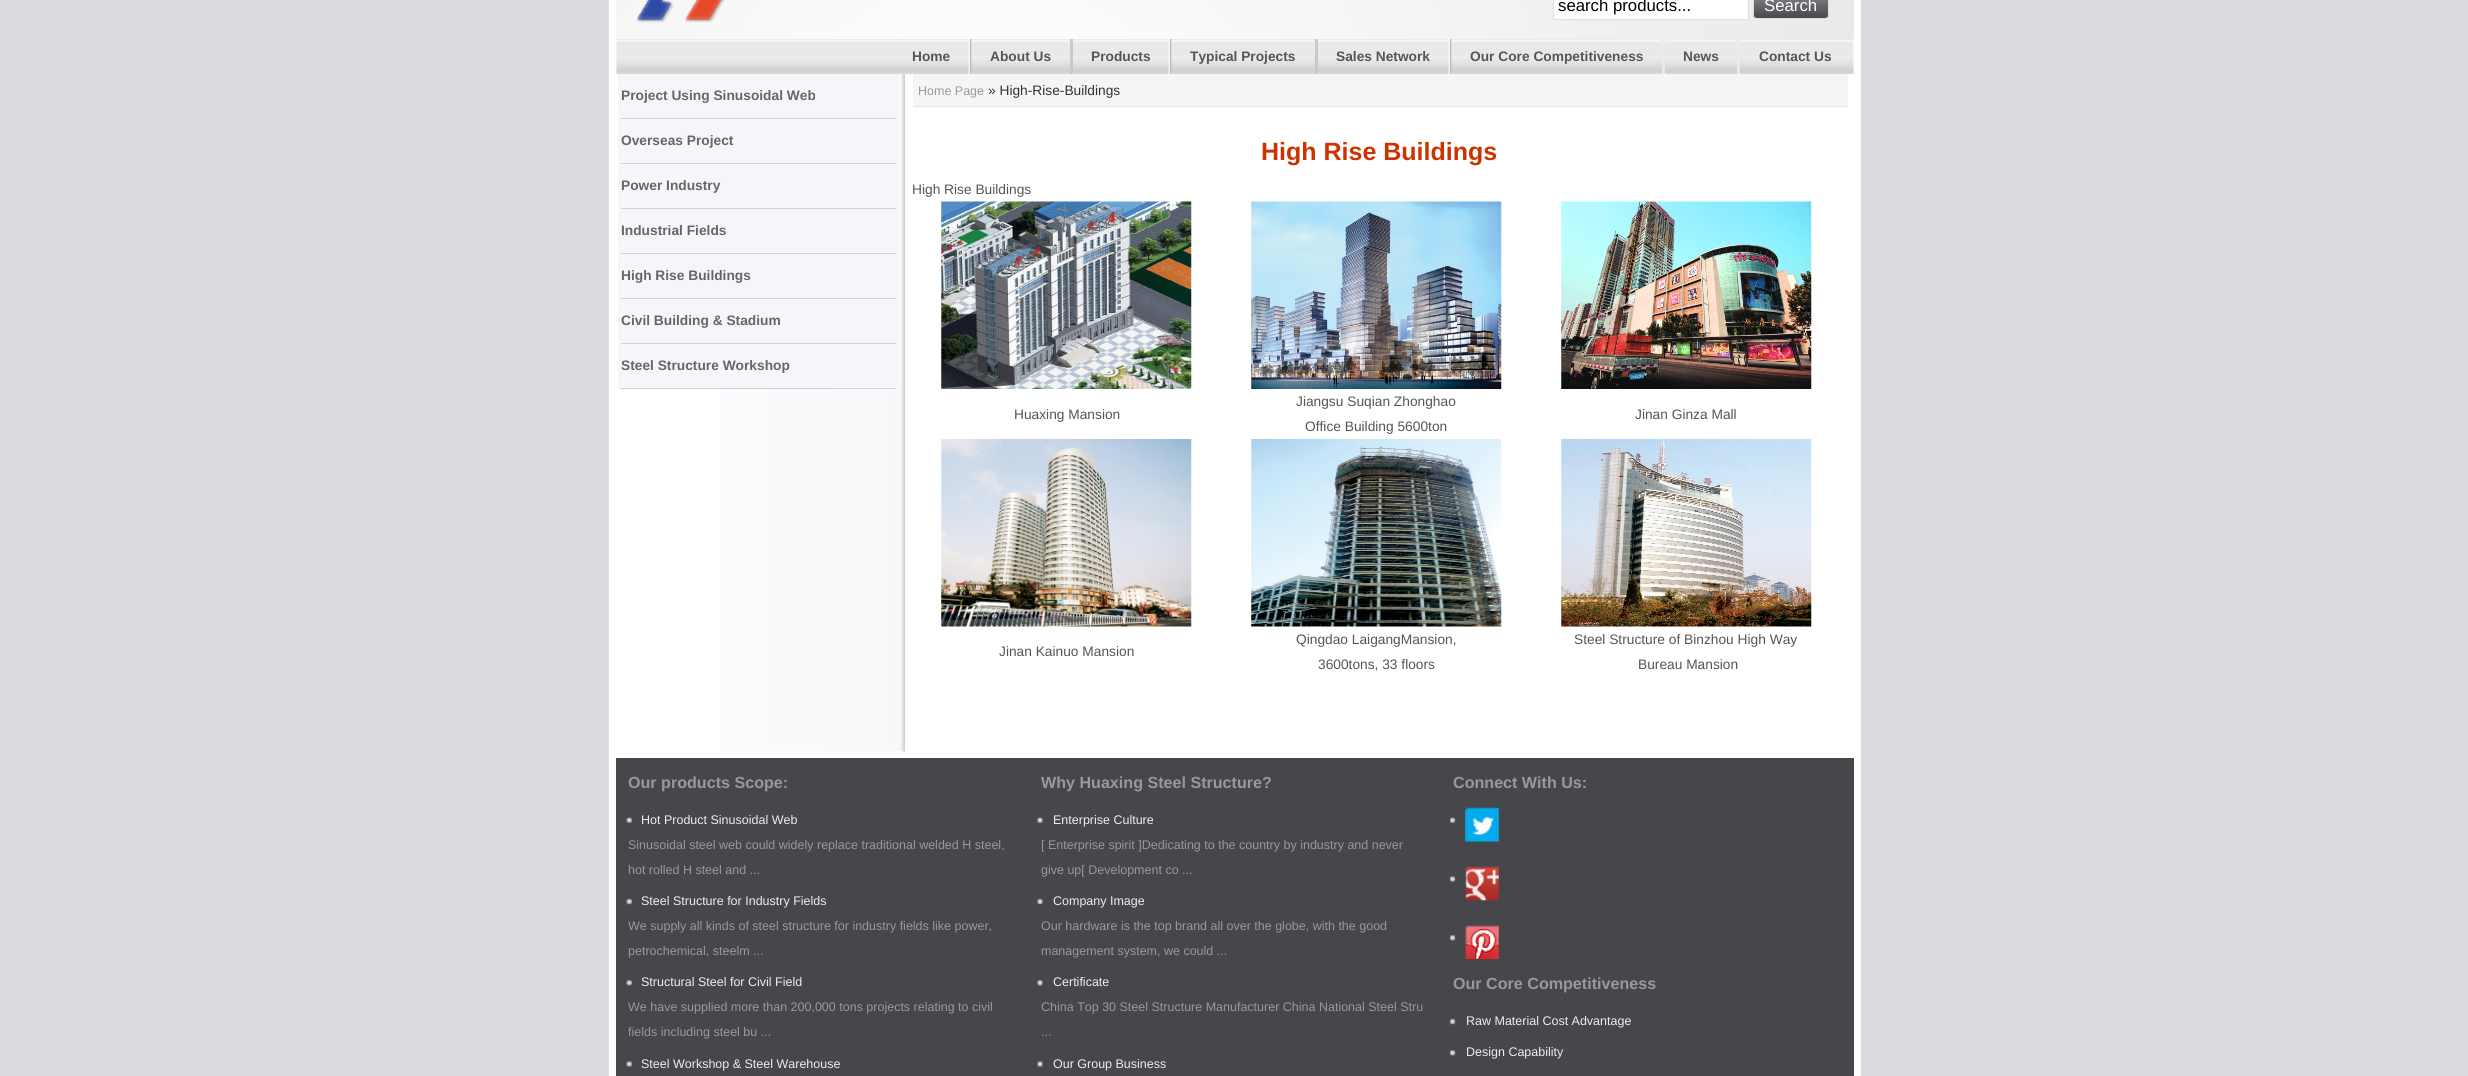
import math
import cairo

surface = cairo.ImageSurface(cairo.Format.RGB24, 2468, 1076)
ctx = cairo.Context(surface)
options = cairo.FontOptions()
options.set_hint_metrics(cairo.HintMetrics.OFF)
options.set_hint_style(cairo.HintStyle.NONE)
ctx.set_font_options(options)
ctx.set_miter_limit(4)


def ink(r, g, b):
    ctx.set_source_rgb(r / 255, g / 255, b / 255)


def write(x, y, s, family, size, color, bold=False, italic=False):
    ctx.select_font_face(family, cairo.FontSlant.ITALIC if italic else cairo.FontSlant.NORMAL, cairo.FontWeight.BOLD if bold else cairo.FontWeight.NORMAL)
    ctx.set_font_size(size)
    ink(*color)
    ctx.move_to(x, y)
    ctx.show_text(s)


def block(x, y, w, h, *color):
    ink(*color)
    ctx.rectangle(x, y, w, h)
    ctx.fill()


def round_path(x, y, w, h, r):
    ctx.new_sub_path()
    for i, (u, v) in enumerate([(x + w - r, y + h - r), (x + r, y + h - r), (x + r, y + r), (x + w - r, y + r)]):
        ctx.arc(u, v, r, i * math.pi / 2, (i + 1) * math.pi / 2)
    ctx.close_path()


def paste(path, x, y, w, h):
    ctx.save()
    ctx.set_source_surface(cairo.ImageSurface.create_from_png(path), x, y)
    ctx.rectangle(x, y, w, h)
    ctx.fill()
    ctx.restore()


s1 = dict(family="Liberation Sans", size=16.75, color=(0, 0, 0))
s2 = dict(family="Liberation Sans", size=16.75, color=(255, 255, 255))
s3 = dict(family="Liberation Sans", size=13.75, color=(85, 85, 85), bold=True)
s4 = dict(family="Liberation Sans", size=13.75, color=(102, 102, 102), bold=True)
s5 = dict(family="Liberation Sans", size=12.5, color=(153, 153, 153))
s6 = dict(family="Liberation Sans", size=13.75, color=(51, 51, 51))
s7 = dict(family="Liberation Sans", size=25, color=(204, 51, 0), bold=True)
s8 = dict(family="Liberation Sans", size=13.75, color=(85, 85, 85))
s9 = dict(family="Liberation Sans", size=16.1, color=(153, 153, 153), bold=True)
s10 = dict(family="Liberation Sans", size=12.5, color=(238, 238, 238))

ink(218, 219, 222)
ctx.paint()
block(609, 0, 1252, 1076, 255, 255, 255)
gradient = cairo.RadialGradient(0, 0, 0, 0, 0, 1)
gradient.set_matrix(cairo.Matrix(1 / 2095, 0, 0, 1 / 1370, -1 * 988 / 2095, -1 * 108 / 1370))
gradient.add_color_stop_rgba(0, 1, 1, 1, 1)
gradient.add_color_stop_rgba(1, 0.8, 0.8, 0.8, 1)
ctx.set_source(gradient)
ctx.rectangle(616, 0, 1238, 39)
ctx.fill()
paste("pic1.png", 637, 0, 88, 23)
ink(255, 255, 255)
ctx.rectangle(1553.5, -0.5, 195, 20)
ctx.fill_preserve()
ink(223, 223, 223)
ctx.set_line_width(1)
ctx.stroke()
write(1558, 11, "search products...", **s1)
ctx.save()
round_path(1753, -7, 76, 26, 4)
ctx.clip()
gradient = cairo.LinearGradient(1791, -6.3, 1791, 18)
gradient.add_color_stop_rgba(0, 0.522, 0.525, 0.533, 1)
gradient.add_color_stop_rgba(0.88, 0.306, 0.31, 0.325, 1)
gradient.add_color_stop_rgba(1, 0.286, 0.29, 0.298, 1)
ctx.set_source(gradient)
ctx.rectangle(1753, 0, 76, 18)
ctx.fill()
ctx.restore()
round_path(1753.5, -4.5, 75, 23, 3.5)
ink(223, 223, 223)
ctx.stroke()
write(1764, 11, "Search", **s2)
paste("pic2.png", 616, 39, 1238, 35)
paste("pic3.png", 968, 39, 4, 35)
write(912, 61, "Home", **s3)
block(1070, 39, 3, 35, 201, 201, 201)
write(990, 61, "About Us", **s3)
paste("pic3.png", 1168, 39, 4, 35)
write(1091, 61, "Products", **s3)
block(1315, 39, 3, 35, 201, 201, 201)
write(1190, 61, "Typical Projects", **s3)
paste("pic3.png", 1448, 39, 4, 35)
write(1336, 61, "Sales Network", **s3)
block(1662, 39, 3, 35, 234, 235, 235)
write(1470, 61, "Our Core Competitiveness", **s3)
block(1737, 39, 3, 35, 234, 235, 235)
write(1683, 61, "News", **s3)
write(1759, 61, "Contact Us", **s3)
paste("pic4.png", 720, 74, 185, 678)
block(720, 74, 181, 315, 255, 255, 255)
block(618, 74, 282, 315, 245, 246, 250)
block(621, 118, 275, 1, 209, 209, 209)
write(621, 100, "Project Using Sinusoidal Web", **s4)
block(621, 163, 275, 1, 209, 209, 209)
write(621, 145, "Overseas Project", **s4)
block(621, 208, 275, 1, 209, 209, 209)
write(621, 190, "Power Industry", **s4)
block(621, 253, 275, 1, 209, 209, 209)
write(621, 235, "Industrial Fields", **s4)
block(621, 298, 275, 1, 209, 209, 209)
write(621, 280, "High Rise Buildings", **s4)
block(621, 343, 275, 1, 209, 209, 209)
write(621, 325, "Civil Building & Stadium", **s4)
block(621, 388, 275, 1, 209, 209, 209)
write(621, 370, "Steel Structure Workshop", **s4)
block(913, 74, 935, 34, 245, 245, 245)
block(913, 106, 935, 1, 234, 234, 234)
write(918, 95, "Home Page", **s5)
write(988, 95, "» High-Rise-Buildings", **s6)
write(1261, 160, "High Rise Buildings", **s7)
write(912, 194, "High Rise Buildings", **s8)
paste("pic5.png", 941, 201, 251, 188)
paste("pic6.png", 1251, 201, 251, 188)
paste("pic7.png", 1561, 201, 251, 188)
write(1014, 419, "Huaxing Mansion", **s8)
write(1296, 406, "Jiangsu Suqian Zhonghao", **s8)
write(1305, 431, "Office Building 5600ton", **s8)
write(1635, 419, "Jinan Ginza Mall", **s8)
paste("pic8.png", 941, 439, 251, 188)
paste("pic9.png", 1251, 439, 251, 188)
paste("pic10.png", 1561, 439, 251, 188)
write(999, 656, "Jinan Kainuo Mansion", **s8)
write(1296, 644, "Qingdao LaigangMansion,", **s8)
write(1318, 669, "3600tons, 33 floors", **s8)
write(1574, 644, "Steel Structure of Binzhou High Way", **s8)
write(1638, 669, "Bureau Mansion", **s8)
block(616, 758, 1238, 318, 70, 71, 75)
write(628, 788, "Our products Scope:", **s9)
paste("pic11.png", 626, 817, 6, 6)
write(641, 824, "Hot Product Sinusoidal Web", **s10)
write(628, 849, "Sinusoidal steel web could widely replace traditional welded H steel,", **s5)
write(628, 874, "hot rolled H steel and ...", **s5)
paste("pic12.png", 626, 898, 6, 7)
write(641, 905, "Steel Structure for Industry Fields", **s10)
write(628, 930, "We supply all kinds of steel structure for industry fields like power,", **s5)
write(628, 955, "petrochemical, steelm ...", **s5)
paste("pic13.png", 626, 980, 6, 6)
write(641, 986, "Structural Steel for Civil Field", **s10)
write(628, 1011, "We have supplied more than 200,000 tons projects relating to civil", **s5)
write(628, 1036, "fields including steel bu ...", **s5)
paste("pic14.png", 626, 1061, 6, 6)
write(641, 1068, "Steel Workshop & Steel Warehouse", **s10)
write(1041, 788, "Why Huaxing Steel Structure?", **s9)
paste("pic15.png", 1037, 817, 6, 6)
write(1053, 824, "Enterprise Culture", **s10)
write(1041, 849, "[ Enterprise spirit ]Dedicating to the country by industry and never", **s5)
write(1041, 874, "give up[ Development co ...", **s5)
paste("pic16.png", 1037, 898, 6, 7)
write(1053, 905, "Company Image", **s10)
write(1041, 930, "Our hardware is the top brand all over the globe, with the good", **s5)
write(1041, 955, "management system, we could ...", **s5)
paste("pic17.png", 1037, 980, 6, 6)
write(1053, 986, "Certificate", **s10)
write(1041, 1011, "China Top 30 Steel Structure Manufacturer China National Steel Stru", **s5)
write(1041, 1036, "...", **s5)
paste("pic18.png", 1037, 1061, 6, 6)
write(1053, 1068, "Our Group Business", **s10)
write(1453, 788, "Connect With Us:", **s9)
paste("pic19.png", 1449, 817, 7, 6)
paste("pic20.png", 1465, 807, 34, 35)
paste("pic21.png", 1449, 876, 7, 6)
paste("pic22.png", 1465, 866, 34, 35)
paste("pic23.png", 1449, 935, 7, 6)
paste("pic24.png", 1465, 925, 34, 34)
write(1453, 989, "Our Core Competitiveness", **s9)
paste("pic25.png", 1449, 1018, 7, 7)
write(1466, 1025, "Raw Material Cost Advantage", **s10)
paste("pic23.png", 1449, 1050, 7, 6)
write(1466, 1056, "Design Capability", **s10)
surface.write_to_png("screenshot.png")
